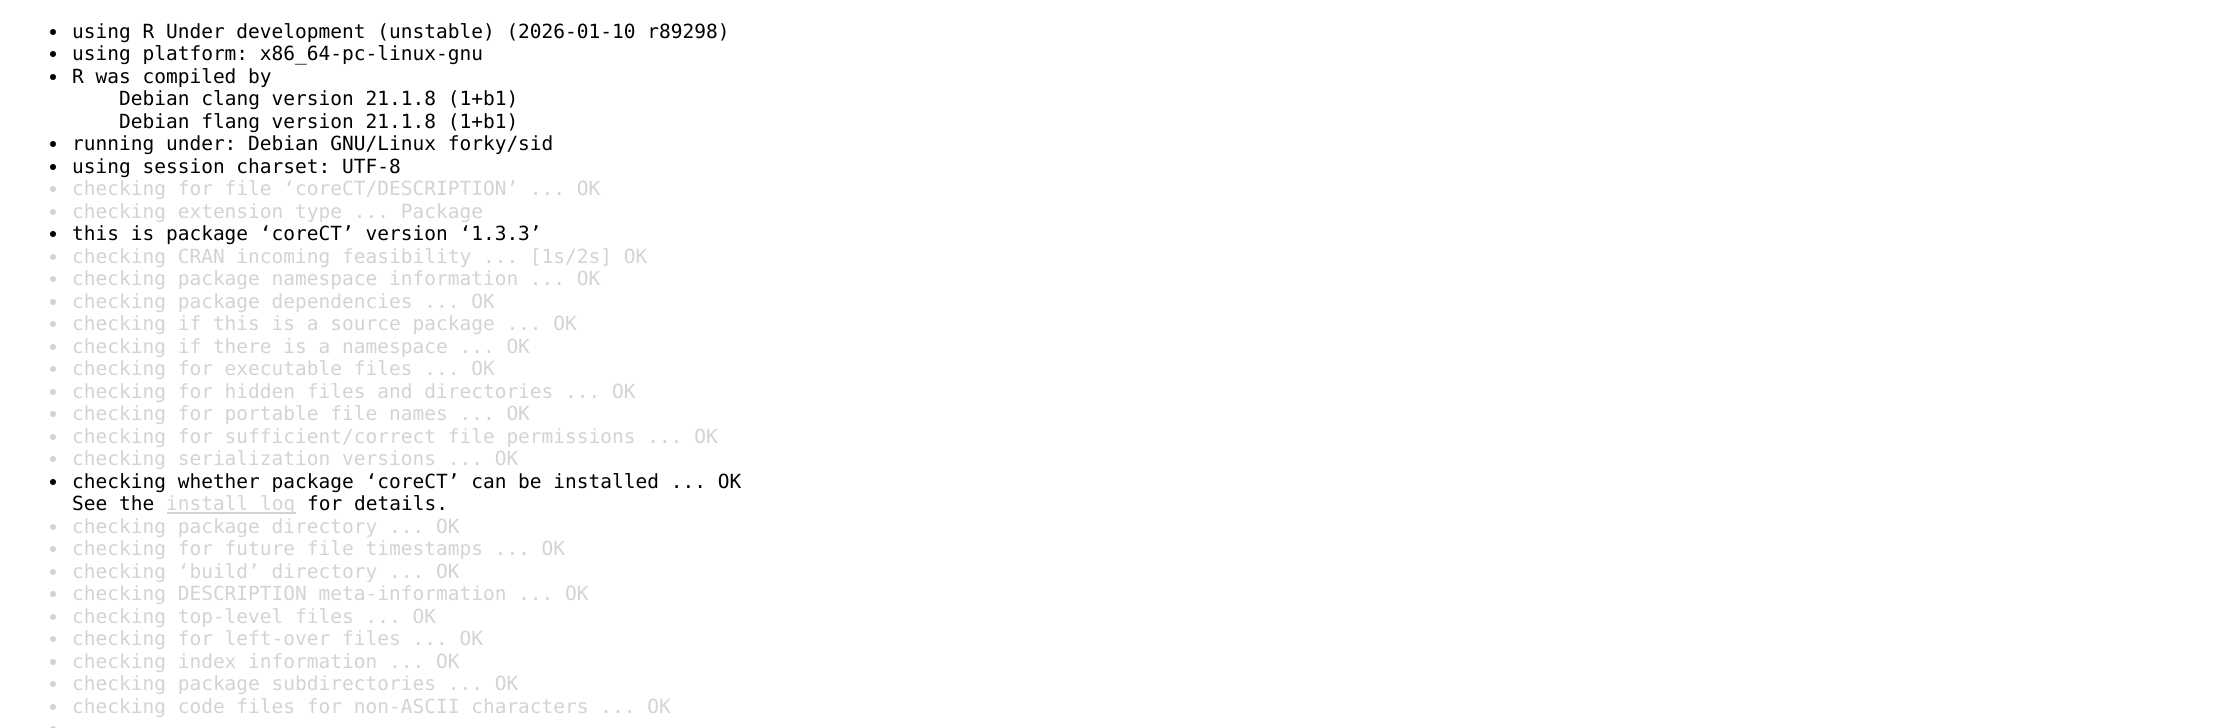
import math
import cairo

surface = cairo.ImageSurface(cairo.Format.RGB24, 2228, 728)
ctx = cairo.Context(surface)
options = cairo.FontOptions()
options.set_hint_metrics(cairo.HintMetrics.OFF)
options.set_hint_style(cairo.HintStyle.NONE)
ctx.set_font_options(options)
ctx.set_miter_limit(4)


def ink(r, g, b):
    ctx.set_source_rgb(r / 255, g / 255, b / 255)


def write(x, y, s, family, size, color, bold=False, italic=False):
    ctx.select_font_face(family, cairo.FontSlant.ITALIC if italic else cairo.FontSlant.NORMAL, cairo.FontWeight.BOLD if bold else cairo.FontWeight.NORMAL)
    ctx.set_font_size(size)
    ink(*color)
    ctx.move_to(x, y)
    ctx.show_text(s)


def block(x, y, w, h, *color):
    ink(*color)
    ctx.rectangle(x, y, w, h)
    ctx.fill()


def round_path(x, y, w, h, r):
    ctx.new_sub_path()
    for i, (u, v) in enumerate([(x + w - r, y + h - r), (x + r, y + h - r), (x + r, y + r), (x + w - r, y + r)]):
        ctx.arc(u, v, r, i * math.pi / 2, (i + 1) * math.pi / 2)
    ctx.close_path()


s1 = dict(family="DejaVu Sans Mono", size=19.5, color=(0, 0, 0))
s2 = dict(family="DejaVu Sans Mono", size=19.5, color=(211, 211, 211))

ink(255, 255, 255)
ctx.paint()
ink(0, 0, 0)
ctx.arc(53, 32, 3, 0, 2 * math.pi)
ctx.fill()
write(72, 38, "using R Under development (unstable) (2026-01-10 r89298)", **s1)
ctx.new_path()
ctx.arc(53, 54, 3, 0, 2 * math.pi)
ctx.fill()
write(72, 60, "using platform: x86_64-pc-linux-gnu", **s1)
ctx.new_path()
ctx.arc(53, 77, 3, 0, 2 * math.pi)
ctx.fill()
write(72, 83, "R was compiled by", **s1)
write(119, 105, "Debian clang version 21.1.8 (1+b1)", **s1)
write(119, 128, "Debian flang version 21.1.8 (1+b1)", **s1)
ctx.new_path()
ctx.arc(53, 144, 3, 0, 2 * math.pi)
ctx.fill()
write(72, 150, "running under: Debian GNU/Linux forky/sid", **s1)
ctx.new_path()
ctx.arc(53, 167, 3, 0, 2 * math.pi)
ctx.fill()
write(72, 173, "using session charset: UTF-8", **s1)
ink(211, 211, 211)
ctx.new_path()
ctx.arc(53, 189, 3, 0, 2 * math.pi)
ctx.fill()
write(72, 195, "checking for file ‘coreCT/DESCRIPTION’ ... OK", **s2)
ctx.new_path()
ctx.arc(53, 212, 3, 0, 2 * math.pi)
ctx.fill()
write(72, 218, "checking extension type ... Package", **s2)
ink(0, 0, 0)
ctx.new_path()
ctx.arc(53, 234, 3, 0, 2 * math.pi)
ctx.fill()
write(72, 240, "this is package ‘coreCT’ version ‘1.3.3’", **s1)
ink(211, 211, 211)
ctx.new_path()
ctx.arc(53, 257, 3, 0, 2 * math.pi)
ctx.fill()
write(72, 263, "checking CRAN incoming feasibility ... [1s/2s] OK", **s2)
ctx.new_path()
ctx.arc(53, 279, 3, 0, 2 * math.pi)
ctx.fill()
write(72, 285, "checking package namespace information ... OK", **s2)
ctx.new_path()
ctx.arc(53, 302, 3, 0, 2 * math.pi)
ctx.fill()
write(72, 308, "checking package dependencies ... OK", **s2)
ctx.new_path()
ctx.arc(53, 324, 3, 0, 2 * math.pi)
ctx.fill()
write(72, 330, "checking if this is a source package ... OK", **s2)
ctx.new_path()
ctx.arc(53, 347, 3, 0, 2 * math.pi)
ctx.fill()
write(72, 353, "checking if there is a namespace ... OK", **s2)
ctx.new_path()
ctx.arc(53, 369, 3, 0, 2 * math.pi)
ctx.fill()
write(72, 375, "checking for executable files ... OK", **s2)
ctx.new_path()
ctx.arc(53, 392, 3, 0, 2 * math.pi)
ctx.fill()
write(72, 398, "checking for hidden files and directories ... OK", **s2)
ctx.new_path()
ctx.arc(53, 414, 3, 0, 2 * math.pi)
ctx.fill()
write(72, 420, "checking for portable file names ... OK", **s2)
ctx.new_path()
ctx.arc(53, 437, 3, 0, 2 * math.pi)
ctx.fill()
write(72, 443, "checking for sufficient/correct file permissions ... OK", **s2)
ctx.new_path()
ctx.arc(53, 459, 3, 0, 2 * math.pi)
ctx.fill()
write(72, 465, "checking serialization versions ... OK", **s2)
ink(0, 0, 0)
ctx.new_path()
ctx.arc(53, 482, 3, 0, 2 * math.pi)
ctx.fill()
write(72, 488, "checking whether package ‘coreCT’ can be installed ... OK", **s1)
write(72, 510, "See the", **s1)
block(167, 512, 129, 2, 211, 211, 211)
write(166, 510, "install log", **s2)
block(273, 492, 3, 1, 255, 255, 255)
write(307, 510, "for details.", **s1)
ink(211, 211, 211)
ctx.new_path()
ctx.arc(53, 527, 3, 0, 2 * math.pi)
ctx.fill()
write(72, 533, "checking package directory ... OK", **s2)
ctx.new_path()
ctx.arc(53, 549, 3, 0, 2 * math.pi)
ctx.fill()
write(72, 555, "checking for future file timestamps ... OK", **s2)
ctx.new_path()
ctx.arc(53, 572, 3, 0, 2 * math.pi)
ctx.fill()
write(72, 578, "checking ‘build’ directory ... OK", **s2)
ctx.new_path()
ctx.arc(53, 594, 3, 0, 2 * math.pi)
ctx.fill()
write(72, 600, "checking DESCRIPTION meta-information ... OK", **s2)
ctx.new_path()
ctx.arc(53, 617, 3, 0, 2 * math.pi)
ctx.fill()
write(72, 623, "checking top-level files ... OK", **s2)
ctx.new_path()
ctx.arc(53, 639, 3, 0, 2 * math.pi)
ctx.fill()
write(72, 645, "checking for left-over files ... OK", **s2)
ctx.new_path()
ctx.arc(53, 662, 3, 0, 2 * math.pi)
ctx.fill()
write(72, 668, "checking index information ... OK", **s2)
ctx.new_path()
ctx.arc(53, 684, 3, 0, 2 * math.pi)
ctx.fill()
write(72, 690, "checking package subdirectories ... OK", **s2)
ctx.new_path()
ctx.arc(53, 707, 3, 0, 2 * math.pi)
ctx.fill()
write(72, 713, "checking code files for non-ASCII characters ... OK", **s2)
round_path(50, 726, 6, 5, 3)
ctx.fill()
surface.write_to_png("screenshot.png")
